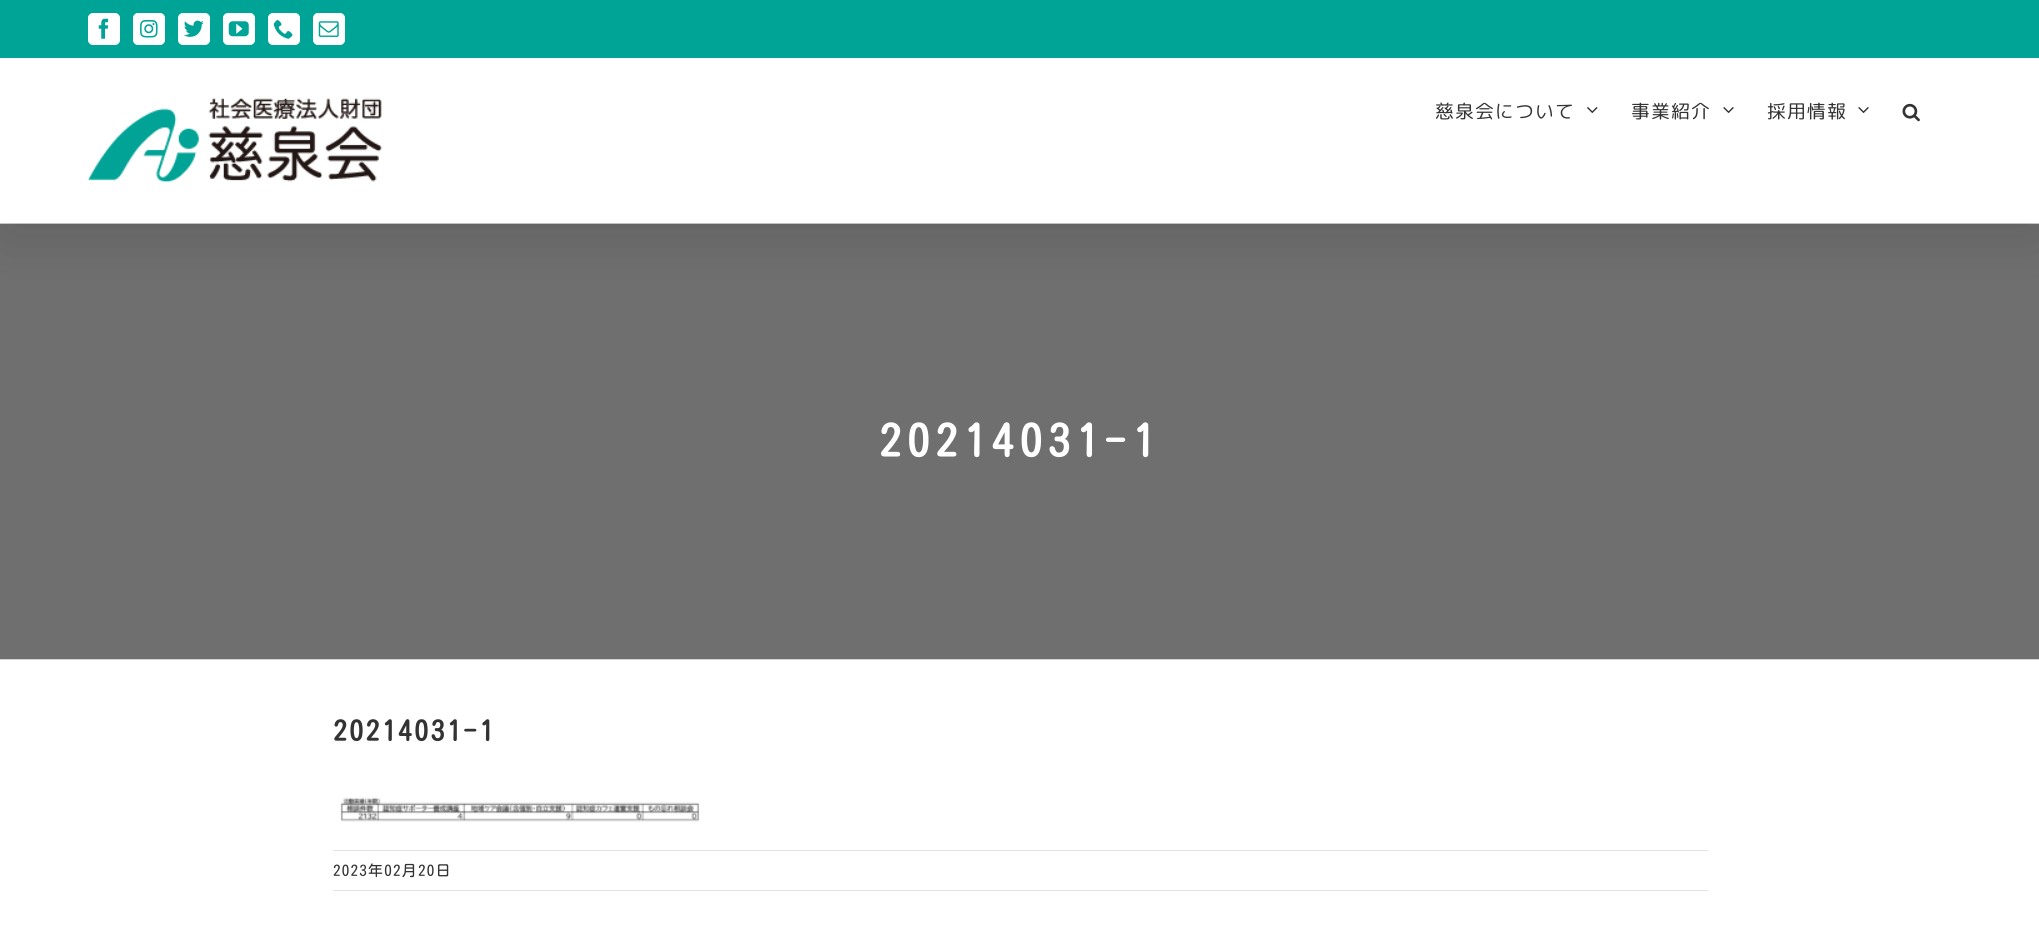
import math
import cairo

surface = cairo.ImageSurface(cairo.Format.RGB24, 2039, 933)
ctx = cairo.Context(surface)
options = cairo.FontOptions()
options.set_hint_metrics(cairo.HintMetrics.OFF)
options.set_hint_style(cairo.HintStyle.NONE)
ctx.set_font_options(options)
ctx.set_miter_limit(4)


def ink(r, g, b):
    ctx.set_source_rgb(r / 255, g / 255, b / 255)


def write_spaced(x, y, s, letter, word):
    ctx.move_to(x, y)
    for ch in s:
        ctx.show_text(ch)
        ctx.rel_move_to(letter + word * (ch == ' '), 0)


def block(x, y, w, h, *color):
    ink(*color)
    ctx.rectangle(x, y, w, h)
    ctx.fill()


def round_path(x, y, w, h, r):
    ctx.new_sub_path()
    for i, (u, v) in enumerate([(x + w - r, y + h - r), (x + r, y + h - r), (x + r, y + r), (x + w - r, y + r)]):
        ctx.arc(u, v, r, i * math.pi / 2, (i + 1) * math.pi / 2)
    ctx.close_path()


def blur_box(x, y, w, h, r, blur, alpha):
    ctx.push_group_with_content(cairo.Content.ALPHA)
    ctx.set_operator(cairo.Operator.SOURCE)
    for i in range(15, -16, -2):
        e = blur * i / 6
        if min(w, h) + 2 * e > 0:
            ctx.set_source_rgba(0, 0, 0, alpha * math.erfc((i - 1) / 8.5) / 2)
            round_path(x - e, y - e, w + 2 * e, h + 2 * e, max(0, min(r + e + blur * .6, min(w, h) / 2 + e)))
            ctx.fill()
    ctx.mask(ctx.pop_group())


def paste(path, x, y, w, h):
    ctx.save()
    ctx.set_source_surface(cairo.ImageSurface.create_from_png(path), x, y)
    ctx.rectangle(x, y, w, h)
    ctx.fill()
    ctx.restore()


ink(255, 255, 255)
ctx.paint()
block(0, 223, 2039, 1, 210, 211, 212)
block(0, 224, 2039, 435, 111, 111, 112)
ink(0, 0, 0)
blur_box(3, 15, 2035, 218, 0, 31, 0.14)
block(0, 0, 2039, 58, 0, 164, 150)
block(0, 58, 2039, 165, 255, 255, 255)
round_path(88.5, 13.5, 31, 31, 4.5)
ctx.fill_preserve()
ctx.set_line_width(1)
ctx.stroke()
paste("pic1.png", 98, 18, 11, 21)
round_path(133.5, 13.5, 31, 31, 4.5)
ctx.fill_preserve()
ctx.stroke()
paste("pic2.png", 140, 20, 18, 18)
round_path(178.5, 13.5, 31, 31, 4.5)
ctx.fill_preserve()
ctx.stroke()
paste("pic3.png", 184, 20, 20, 17)
round_path(223.5, 13.5, 31, 31, 4.5)
ctx.fill_preserve()
ctx.stroke()
paste("pic4.png", 228, 21, 21, 16)
round_path(268.5, 13.5, 31, 31, 4.5)
ctx.fill_preserve()
ctx.stroke()
paste("pic5.png", 273, 20, 20, 19)
round_path(313.5, 13.5, 31, 31, 4.5)
ctx.fill_preserve()
ctx.stroke()
paste("pic6.png", 318, 21, 21, 16)
paste("pic7.png", 88, 98, 294, 84)
ctx.select_font_face("Rounded Mplus 1c")
ctx.set_font_size(18.75)
ink(51, 51, 51)
write_spaced(1435, 118, "慈泉会について", 1.25, 0)
paste("pic8.png", 1587, 107, 11, 6)
write_spaced(1631, 118, "事業紹介", 1.25, 0)
paste("pic9.png", 1723, 107, 11, 6)
write_spaced(1767, 118, "採用情報", 1.25, 0)
paste("pic9.png", 1858, 107, 11, 6)
paste("pic10.png", 1902, 103, 18, 19)
block(0, 659, 2039, 1, 210, 211, 212)
ctx.select_font_face("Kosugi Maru", cairo.FontSlant.NORMAL, cairo.FontWeight.BOLD)
ctx.set_font_size(43.75)
ink(255, 255, 255)
write_spaced(879, 457, "20214031-1", 6.25, 0)
ctx.set_font_size(27.5)
ink(51, 51, 51)
write_spaced(333, 741, "20214031-1", 2.5, 0)
paste("pic11.png", 340, 797, 360, 25)
block(333, 850, 1375, 1, 226, 226, 226)
block(333, 890, 1375, 1, 226, 226, 226)
ctx.select_font_face("Kosugi Maru")
ctx.set_font_size(15)
ink(51, 51, 51)
write_spaced(333, 876, "2023年02月20日", 1.25, 0)
surface.write_to_png("screenshot.png")
